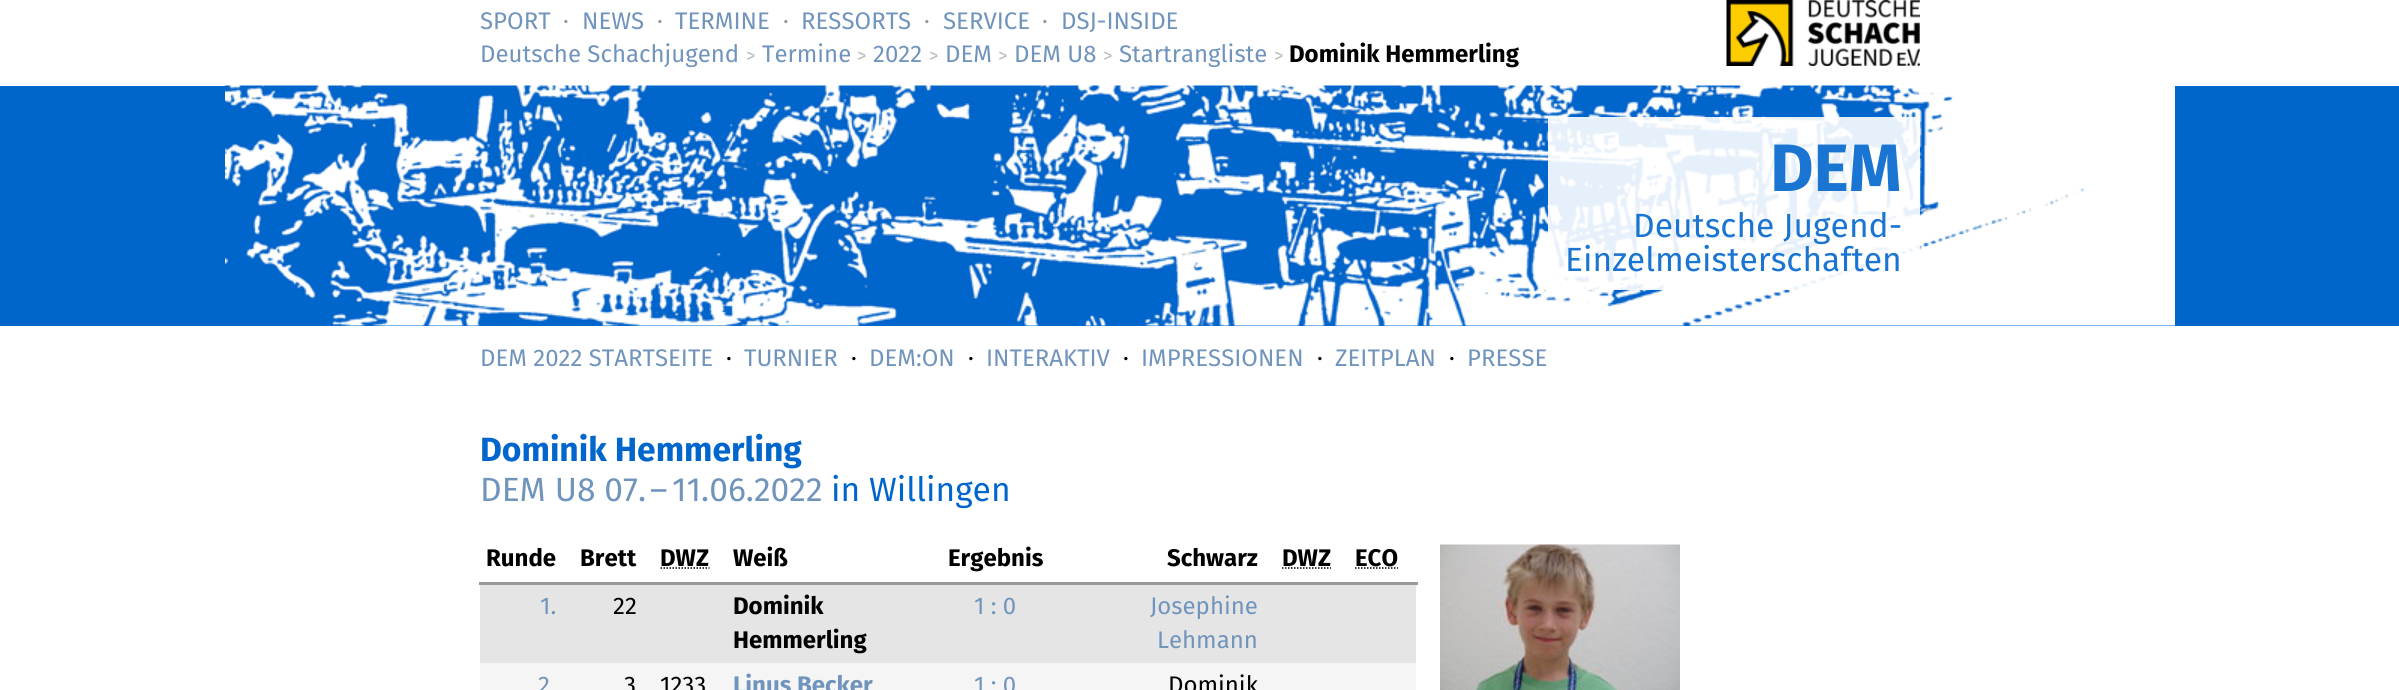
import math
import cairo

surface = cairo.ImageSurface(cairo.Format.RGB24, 2399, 690)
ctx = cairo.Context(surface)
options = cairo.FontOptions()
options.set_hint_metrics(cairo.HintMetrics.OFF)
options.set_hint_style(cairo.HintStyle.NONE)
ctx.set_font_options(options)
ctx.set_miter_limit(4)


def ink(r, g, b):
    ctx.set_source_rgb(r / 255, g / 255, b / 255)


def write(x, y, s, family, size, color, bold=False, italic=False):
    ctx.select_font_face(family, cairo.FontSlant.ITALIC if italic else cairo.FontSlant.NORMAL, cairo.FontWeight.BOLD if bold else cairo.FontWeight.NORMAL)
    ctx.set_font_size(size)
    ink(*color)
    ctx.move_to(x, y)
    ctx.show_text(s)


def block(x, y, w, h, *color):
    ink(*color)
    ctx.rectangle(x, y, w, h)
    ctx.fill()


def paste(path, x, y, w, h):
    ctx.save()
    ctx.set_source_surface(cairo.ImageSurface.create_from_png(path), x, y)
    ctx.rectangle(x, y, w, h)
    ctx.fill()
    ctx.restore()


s1 = dict(family="Fira Sans", size=24, color=(112, 148, 187))
s2 = dict(family="Fira Sans", size=24, color=(153, 153, 153))
s3 = dict(family="Fira Sans", size=19, color=(187, 187, 187))
s4 = dict(family="Fira Sans", size=24, color=(0, 0, 0), bold=True)
s5 = dict(family="Fira Sans", size=67, color=(25, 117, 209), bold=True)
s6 = dict(family="Fira Sans", size=33.6, color=(25, 117, 209))
s7 = dict(family="Fira Sans", size=24, color=(0, 0, 0))
s8 = dict(family="Fira Sans", size=33.6, color=(0, 102, 204), bold=True)
s9 = dict(family="Fira Sans", size=33.6, color=(112, 148, 187))
s10 = dict(family="Fira Sans", size=33.6, color=(0, 102, 204))
s11 = dict(family="Fira Sans", size=24, color=(112, 148, 187), bold=True)

ink(255, 255, 255)
ctx.paint()
write(480, 29, "SPORT", **s1)
write(563, 29, "·", **s2)
write(582, 29, "NEWS", **s1)
write(657, 29, "·", **s2)
write(675, 29, "TERMINE", **s1)
write(783, 29, "·", **s2)
write(801, 29, "RESSORTS", **s1)
write(924, 29, "·", **s2)
write(943, 29, "SERVICE", **s1)
write(1042, 29, "·", **s2)
write(1061, 29, "DSJ-INSIDE", **s1)
write(480, 62, "Deutsche Schachjugend", **s1)
write(746, 62, ">", **s3)
write(762, 62, "Termine", **s1)
write(857, 62, ">", **s3)
write(873, 62, "2022", **s1)
write(929, 62, ">", **s3)
write(945, 62, "DEM", **s1)
write(998, 62, ">", **s3)
write(1014, 62, "DEM U8", **s1)
write(1103, 62, ">", **s3)
write(1119, 62, "Startrangliste", **s1)
write(1274, 62, ">", **s3)
write(1289, 62, "Dominik Hemmerling", **s4)
paste("pic1.png", 1726, 0, 194, 66)
block(0, 86, 2399, 240, 0, 102, 204)
paste("pic2.png", 225, 85, 1950, 241)
ctx.set_source_rgba(1, 1, 1, 0.9)
ctx.rectangle(1548, 117, 372, 173)
ctx.fill()
write(1770, 191, "DEM", **s5)
write(1633, 237, "Deutsche Jugend-", **s6)
write(1565, 271, "Einzelmeisterschaften", **s6)
write(480, 366, "DEM 2022 STARTSEITE", **s1)
write(726, 366, "·", **s7)
write(744, 366, "TURNIER", **s1)
write(851, 366, "·", **s7)
write(869, 366, "DEM:ON", **s1)
write(968, 366, "·", **s7)
write(986, 366, "INTERAKTIV", **s1)
write(1123, 366, "·", **s7)
write(1141, 366, "IMPRESSIONEN", **s1)
write(1317, 366, "·", **s7)
write(1335, 366, "ZEITPLAN", **s1)
write(1449, 366, "·", **s7)
write(1467, 366, "PRESSE", **s1)
write(480, 461, "Dominik Hemmerling", **s8)
write(480, 501, "DEM U8 07.", **s9)
write(650, 501, "–", **s9)
write(672, 501, "11.06.2022", **s9)
write(831, 501, "in Willingen", **s10)
write(486, 566, "Runde", **s4)
write(580, 566, "Brett", **s4)
write(660, 566, "DWZ", **s4)
ctx.new_path()
ctx.move_to(660.5, 568)
ctx.line_to(709.5, 568)
ctx.set_line_width(1.5)
ctx.set_dash([1.5, 1.5])
ctx.stroke()
write(733, 566, "Weiß", **s4)
write(948, 566, "Ergebnis", **s4)
write(1167, 566, "Schwarz", **s4)
write(1282, 566, "DWZ", **s4)
ctx.new_path()
ctx.move_to(1282, 568)
ctx.line_to(1331, 568)
ctx.stroke()
block(479, 582, 939, 3, 153, 153, 153)
write(1355, 566, "ECO", **s4)
ctx.new_path()
ctx.move_to(1355, 568)
ctx.line_to(1398, 568)
ctx.stroke()
block(480, 585, 936, 78, 229, 229, 229)
write(540, 614, "1.", **s1)
write(613, 614, "22", **s7)
write(733, 614, "Dominik", **s4)
write(733, 648, "Hemmerling", **s4)
write(974, 614, "1 : 0", **s1)
write(1150, 614, "Josephine", **s1)
write(1157, 648, "Lehmann", **s1)
block(480, 663, 936, 27, 245, 245, 245)
write(538, 693, "2", **s1)
write(624, 693, "3", **s7)
write(660, 693, "1233", **s7)
write(733, 693, "Linus Becker", **s11)
write(974, 693, "1 : 0", **s1)
write(1168, 693, "Dominik", **s7)
paste("pic3.png", 1440, 544, 240, 146)
surface.write_to_png("screenshot.png")
